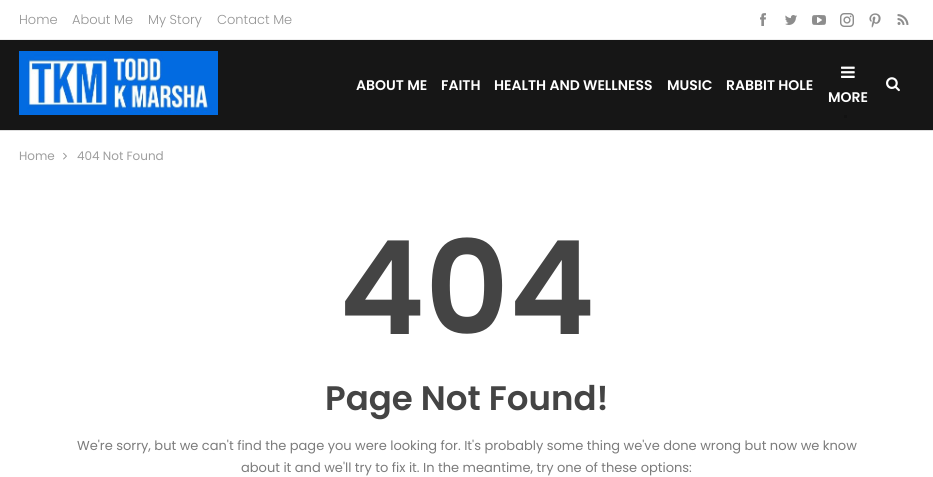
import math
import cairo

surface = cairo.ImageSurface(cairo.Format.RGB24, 933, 477)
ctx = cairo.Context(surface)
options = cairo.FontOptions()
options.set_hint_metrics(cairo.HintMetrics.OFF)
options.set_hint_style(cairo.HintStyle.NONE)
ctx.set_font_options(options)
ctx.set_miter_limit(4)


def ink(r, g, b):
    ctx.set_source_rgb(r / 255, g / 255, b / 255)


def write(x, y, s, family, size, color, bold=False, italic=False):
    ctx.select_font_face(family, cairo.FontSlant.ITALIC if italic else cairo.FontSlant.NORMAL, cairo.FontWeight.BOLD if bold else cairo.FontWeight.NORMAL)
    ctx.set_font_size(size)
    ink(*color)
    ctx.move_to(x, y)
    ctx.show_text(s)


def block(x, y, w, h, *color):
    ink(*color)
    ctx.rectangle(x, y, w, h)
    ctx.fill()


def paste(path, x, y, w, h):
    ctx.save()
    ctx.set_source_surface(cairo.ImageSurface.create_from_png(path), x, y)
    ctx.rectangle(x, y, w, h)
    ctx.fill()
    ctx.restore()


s1 = dict(family="Poppins Light", size=13, color=(147, 147, 147))
s2 = dict(family="Poppins SemiBold", size=14, color=(255, 255, 255))
s3 = dict(family="Poppins", size=12, color=(158, 158, 158))
s4 = dict(family="Poppins SemiBold", size=130, color=(68, 68, 68))
s5 = dict(family="Poppins SemiBold", size=34, color=(68, 68, 68))
s6 = dict(family="Poppins", size=13, color=(123, 123, 123))

ink(255, 255, 255)
ctx.paint()
block(0, 130, 933, 1, 222, 222, 222)
block(0, 39, 933, 1, 239, 239, 239)
write(19, 24, "Home", **s1)
write(72, 24, "About Me", **s1)
write(148, 24, "My Story", **s1)
write(217, 24, "Contact Me", **s1)
paste("pic1.png", 760, 13, 6, 13)
paste("pic2.png", 785, 15, 12, 10)
paste("pic3.png", 812, 15, 14, 10)
paste("pic4.png", 840, 13, 14, 14)
paste("pic5.png", 869, 13, 12, 15)
paste("pic6.png", 897, 14, 12, 11)
block(0, 40, 933, 90, 22, 22, 22)
paste("pic7.png", 19, 51, 199, 64)
write(356, 90, "ABOUT ME", **s2)
write(441, 90, "FAITH", **s2)
write(494, 90, "HEALTH AND WELLNESS", **s2)
write(667, 90, "MUSIC", **s2)
write(726, 90, "RABBIT HOLE", **s2)
paste("pic8.png", 841, 66, 14, 12)
write(828, 102, "MORE", **s2)
block(844, 115, 3, 3, 18, 18, 18)
paste("pic9.png", 886, 77, 14, 15)
write(19, 160, "Home", **s3)
paste("pic10.png", 63, 152, 4, 8)
write(77, 160, "404 Not Found", **s3)
write(339, 334, "404", **s4)
write(325, 410, "Page Not Found!", **s5)
write(77, 450, "We're sorry, but we can't find the page you were looking for. It's probably some thing we've done wrong but now we know", **s6)
write(241, 472, "about it and we'll try to fix it. In the meantime, try one of these options:", **s6)
surface.write_to_png("screenshot.png")
